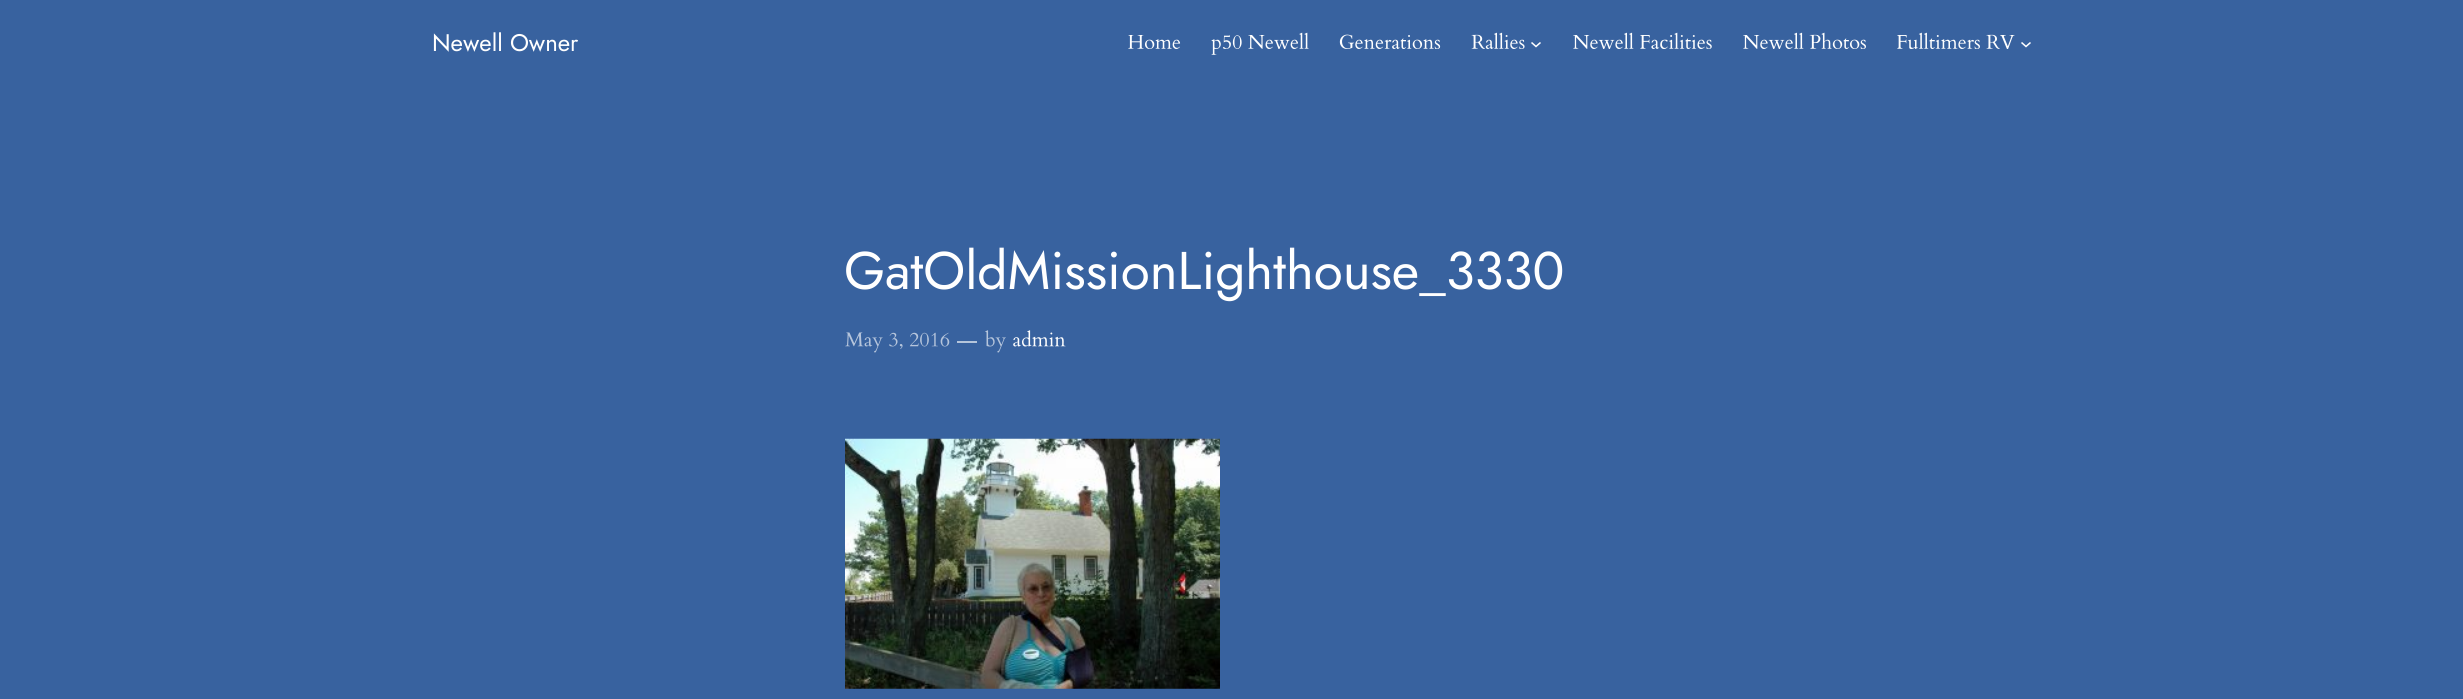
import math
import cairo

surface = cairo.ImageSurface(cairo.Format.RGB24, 2463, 699)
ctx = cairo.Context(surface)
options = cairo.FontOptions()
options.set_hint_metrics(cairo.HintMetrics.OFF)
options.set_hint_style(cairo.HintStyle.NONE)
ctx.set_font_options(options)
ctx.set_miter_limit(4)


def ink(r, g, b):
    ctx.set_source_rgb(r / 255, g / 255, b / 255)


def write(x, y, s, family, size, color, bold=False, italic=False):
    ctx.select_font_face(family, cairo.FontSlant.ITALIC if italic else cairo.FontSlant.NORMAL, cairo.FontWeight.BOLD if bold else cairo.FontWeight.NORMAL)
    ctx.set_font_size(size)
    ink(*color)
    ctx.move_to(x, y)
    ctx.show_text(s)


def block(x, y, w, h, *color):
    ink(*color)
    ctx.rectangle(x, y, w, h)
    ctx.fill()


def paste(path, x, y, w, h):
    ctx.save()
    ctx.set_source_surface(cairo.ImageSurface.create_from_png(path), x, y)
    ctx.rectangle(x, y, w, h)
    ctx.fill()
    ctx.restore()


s1 = dict(family="Jost", size=24, color=(255, 255, 255))
s2 = dict(family="Jost", size=53, color=(255, 255, 255))

ink(56, 98, 159)
ctx.paint()
write(432, 51, "Newell Owner", **s1)
paste("pic1.png", 1128, 35, 53, 14)
paste("pic2.png", 1211, 32, 98, 23)
paste("pic3.png", 1339, 34, 102, 15)
paste("pic4.png", 1471, 32, 54, 17)
ctx.new_path()
ctx.move_to(1531.5, 42.5)
ctx.line_to(1536, 46.5)
ctx.line_to(1540.5, 42.5)
ctx.set_line_width(1.5)
ctx.stroke()
paste("pic5.png", 1573, 32, 139, 17)
paste("pic6.png", 1743, 32, 123, 17)
paste("pic7.png", 1897, 32, 118, 17)
ctx.new_path()
ctx.move_to(2021.5, 42.5)
ctx.line_to(2026, 46.5)
ctx.line_to(2030.5, 42.5)
ctx.stroke()
write(844, 289, "GatOldMissionLighthouse_3330", **s2)
paste("pic8.png", 845, 332, 105, 21)
block(957, 341, 20, 2, 181, 197, 219)
paste("pic9.png", 985, 330, 21, 23)
paste("pic10.png", 1013, 330, 53, 17)
paste("pic11.png", 845, 438, 375, 251)
surface.write_to_png("screenshot.png")
